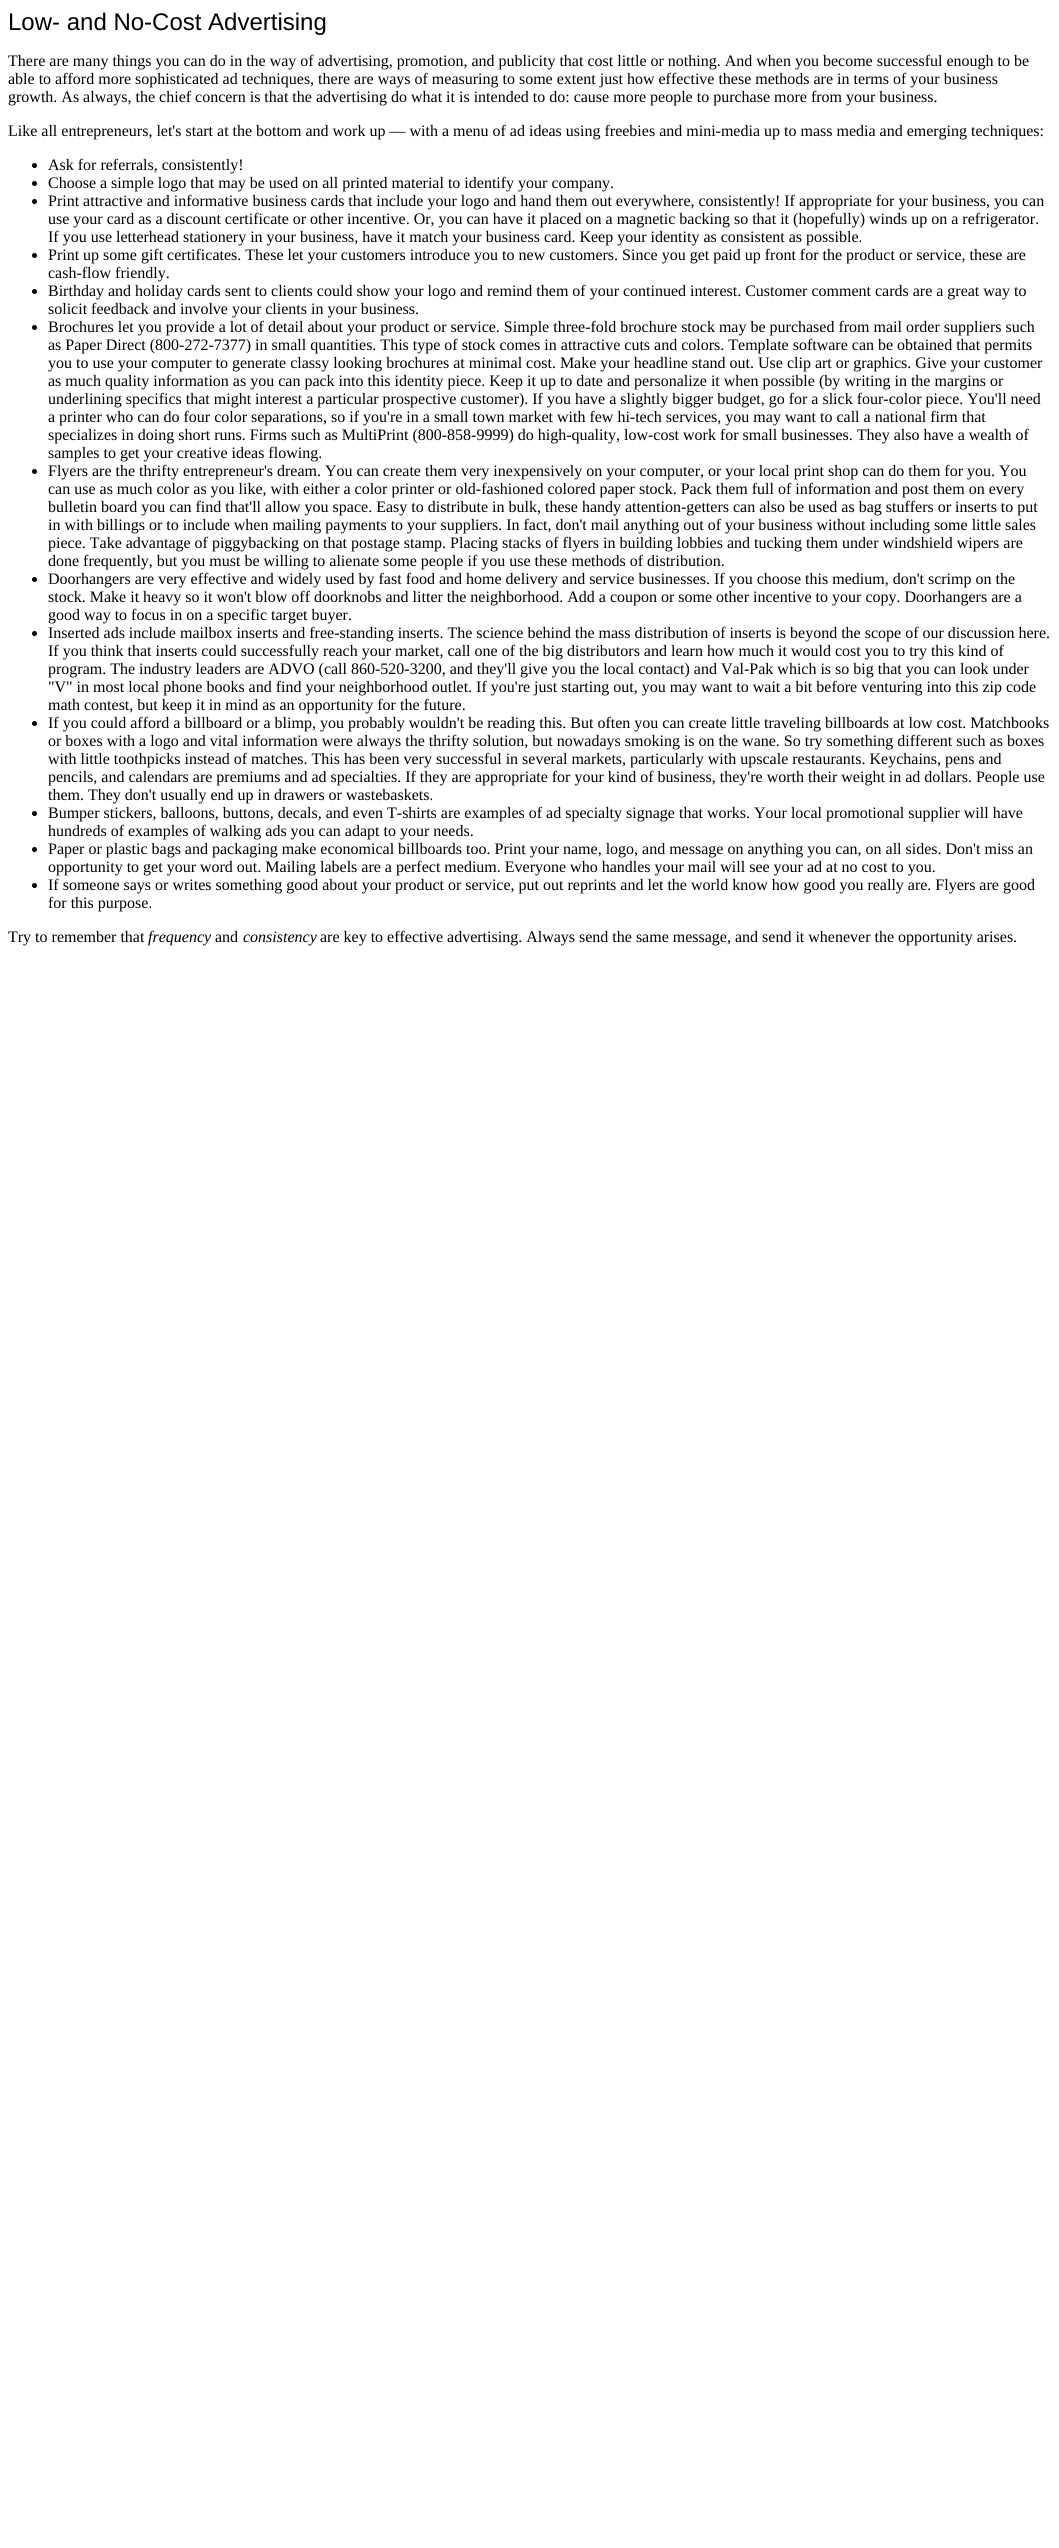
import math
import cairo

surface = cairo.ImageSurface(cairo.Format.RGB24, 1059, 2548)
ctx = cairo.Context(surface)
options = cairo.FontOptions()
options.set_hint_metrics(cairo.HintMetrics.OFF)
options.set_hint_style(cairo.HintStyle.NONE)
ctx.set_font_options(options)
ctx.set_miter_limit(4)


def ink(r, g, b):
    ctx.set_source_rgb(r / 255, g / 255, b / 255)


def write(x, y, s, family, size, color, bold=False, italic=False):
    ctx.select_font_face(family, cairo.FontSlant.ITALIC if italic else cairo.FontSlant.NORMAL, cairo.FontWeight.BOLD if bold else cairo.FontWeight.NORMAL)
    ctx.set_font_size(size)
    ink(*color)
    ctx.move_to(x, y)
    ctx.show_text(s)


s1 = dict(family="Liberation Sans", size=24, color=(0, 0, 0))
s2 = dict(family="Liberation Serif", size=16, color=(0, 0, 0))
s3 = dict(family="Liberation Serif", size=16, color=(0, 0, 0), italic=True)

ink(255, 255, 255)
ctx.paint()
write(8, 30, "Low- and No-Cost Advertising", **s1)
write(8, 66, "There are many things you can do in the way of advertising, promotion, and publicity that cost little or nothing. And when you become successful enough to be", **s2)
write(8, 84, "able to afford more sophisticated ad techniques, there are ways of measuring to some extent just how effective these methods are in terms of your business", **s2)
write(8, 102, "growth. As always, the chief concern is that the advertising do what it is intended to do: cause more people to purchase more from your business.", **s2)
write(8, 136, "Like all entrepreneurs, let's start at the bottom and work up — with a menu of ad ideas using freebies and mini-media up to mass media and emerging techniques:", **s2)
ctx.new_path()
ctx.arc(34.5, 165.5, 2.5, 0, 2 * math.pi)
ctx.fill()
write(48, 170, "Ask for referrals, consistently!", **s2)
ctx.new_path()
ctx.arc(34.5, 183.5, 2.5, 0, 2 * math.pi)
ctx.fill()
write(48, 188, "Choose a simple logo that may be used on all printed material to identify your company.", **s2)
ctx.new_path()
ctx.arc(34.5, 201.5, 2.5, 0, 2 * math.pi)
ctx.fill()
write(48, 206, "Print attractive and informative business cards that include your logo and hand them out everywhere, consistently! If appropriate for your business, you can", **s2)
write(48, 224, "use your card as a discount certificate or other incentive. Or, you can have it placed on a magnetic backing so that it (hopefully) winds up on a refrigerator.", **s2)
write(48, 242, "If you use letterhead stationery in your business, have it match your business card. Keep your identity as consistent as possible.", **s2)
ctx.new_path()
ctx.arc(34.5, 255.5, 2.5, 0, 2 * math.pi)
ctx.fill()
write(48, 260, "Print up some gift certificates. These let your customers introduce you to new customers. Since you get paid up front for the product or service, these are", **s2)
write(48, 278, "cash-flow friendly.", **s2)
ctx.new_path()
ctx.arc(34.5, 291.5, 2.5, 0, 2 * math.pi)
ctx.fill()
write(48, 296, "Birthday and holiday cards sent to clients could show your logo and remind them of your continued interest. Customer comment cards are a great way to", **s2)
write(48, 314, "solicit feedback and involve your clients in your business.", **s2)
ctx.new_path()
ctx.arc(34.5, 327.5, 2.5, 0, 2 * math.pi)
ctx.fill()
write(48, 332, "Brochures let you provide a lot of detail about your product or service. Simple three-fold brochure stock may be purchased from mail order suppliers such", **s2)
write(48, 350, "as Paper Direct (800-272-7377) in small quantities. This type of stock comes in attractive cuts and colors. Template software can be obtained that permits", **s2)
write(48, 368, "you to use your computer to generate classy looking brochures at minimal cost. Make your headline stand out. Use clip art or graphics. Give your customer", **s2)
write(48, 386, "as much quality information as you can pack into this identity piece. Keep it up to date and personalize it when possible (by writing in the margins or", **s2)
write(48, 404, "underlining specifics that might interest a particular prospective customer). If you have a slightly bigger budget, go for a slick four-color piece. You'll need", **s2)
write(48, 422, "a printer who can do four color separations, so if you're in a small town market with few hi-tech services, you may want to call a national firm that", **s2)
write(48, 440, "specializes in doing short runs. Firms such as MultiPrint (800-858-9999) do high-quality, low-cost work for small businesses. They also have a wealth of", **s2)
write(48, 458, "samples to get your creative ideas flowing.", **s2)
ctx.new_path()
ctx.arc(34.5, 471.5, 2.5, 0, 2 * math.pi)
ctx.fill()
write(48, 476, "Flyers are the thrifty entrepreneur's dream. You can create them very inexpensively on your computer, or your local print shop can do them for you. You", **s2)
write(48, 494, "can use as much color as you like, with either a color printer or old-fashioned colored paper stock. Pack them full of information and post them on every", **s2)
write(48, 512, "bulletin board you can find that'll allow you space. Easy to distribute in bulk, these handy attention-getters can also be used as bag stuffers or inserts to put", **s2)
write(48, 530, "in with billings or to include when mailing payments to your suppliers. In fact, don't mail anything out of your business without including some little sales", **s2)
write(48, 548, "piece. Take advantage of piggybacking on that postage stamp. Placing stacks of flyers in building lobbies and tucking them under windshield wipers are", **s2)
write(48, 566, "done frequently, but you must be willing to alienate some people if you use these methods of distribution.", **s2)
ctx.new_path()
ctx.arc(34.5, 579.5, 2.5, 0, 2 * math.pi)
ctx.fill()
write(48, 584, "Doorhangers are very effective and widely used by fast food and home delivery and service businesses. If you choose this medium, don't scrimp on the", **s2)
write(48, 602, "stock. Make it heavy so it won't blow off doorknobs and litter the neighborhood. Add a coupon or some other incentive to your copy. Doorhangers are a", **s2)
write(48, 620, "good way to focus in on a specific target buyer.", **s2)
ctx.new_path()
ctx.arc(34.5, 633.5, 2.5, 0, 2 * math.pi)
ctx.fill()
write(48, 638, "Inserted ads include mailbox inserts and free-standing inserts. The science behind the mass distribution of inserts is beyond the scope of our discussion here.", **s2)
write(48, 656, "If you think that inserts could successfully reach your market, call one of the big distributors and learn how much it would cost you to try this kind of", **s2)
write(48, 674, "program. The industry leaders are ADVO (call 860-520-3200, and they'll give you the local contact) and Val-Pak which is so big that you can look under", **s2)
write(48, 692, "\"V\" in most local phone books and find your neighborhood outlet. If you're just starting out, you may want to wait a bit before venturing into this zip code", **s2)
write(48, 710, "math contest, but keep it in mind as an opportunity for the future.", **s2)
ctx.new_path()
ctx.arc(34.5, 723.5, 2.5, 0, 2 * math.pi)
ctx.fill()
write(48, 728, "If you could afford a billboard or a blimp, you probably wouldn't be reading this. But often you can create little traveling billboards at low cost. Matchbooks", **s2)
write(48, 746, "or boxes with a logo and vital information were always the thrifty solution, but nowadays smoking is on the wane. So try something different such as boxes", **s2)
write(48, 764, "with little toothpicks instead of matches. This has been very successful in several markets, particularly with upscale restaurants. Keychains, pens and", **s2)
write(48, 782, "pencils, and calendars are premiums and ad specialties. If they are appropriate for your kind of business, they're worth their weight in ad dollars. People use", **s2)
write(48, 800, "them. They don't usually end up in drawers or wastebaskets.", **s2)
ctx.new_path()
ctx.arc(34.5, 813.5, 2.5, 0, 2 * math.pi)
ctx.fill()
write(48, 818, "Bumper stickers, balloons, buttons, decals, and even T-shirts are examples of ad specialty signage that works. Your local promotional supplier will have", **s2)
write(48, 836, "hundreds of examples of walking ads you can adapt to your needs.", **s2)
ctx.new_path()
ctx.arc(34.5, 849.5, 2.5, 0, 2 * math.pi)
ctx.fill()
write(48, 854, "Paper or plastic bags and packaging make economical billboards too. Print your name, logo, and message on anything you can, on all sides. Don't miss an", **s2)
write(48, 872, "opportunity to get your word out. Mailing labels are a perfect medium. Everyone who handles your mail will see your ad at no cost to you.", **s2)
ctx.new_path()
ctx.arc(34.5, 885.5, 2.5, 0, 2 * math.pi)
ctx.fill()
write(48, 890, "If someone says or writes something good about your product or service, put out reprints and let the world know how good you really are. Flyers are good", **s2)
write(48, 908, "for this purpose.", **s2)
write(8, 942, "Try to remember that", **s2)
write(148, 942, "frequency", **s3)
write(215, 942, "and", **s2)
write(243, 942, "consistency", **s3)
write(320, 942, "are key to effective advertising. Always send the same message, and send it whenever the opportunity arises.", **s2)
surface.write_to_png("screenshot.png")
